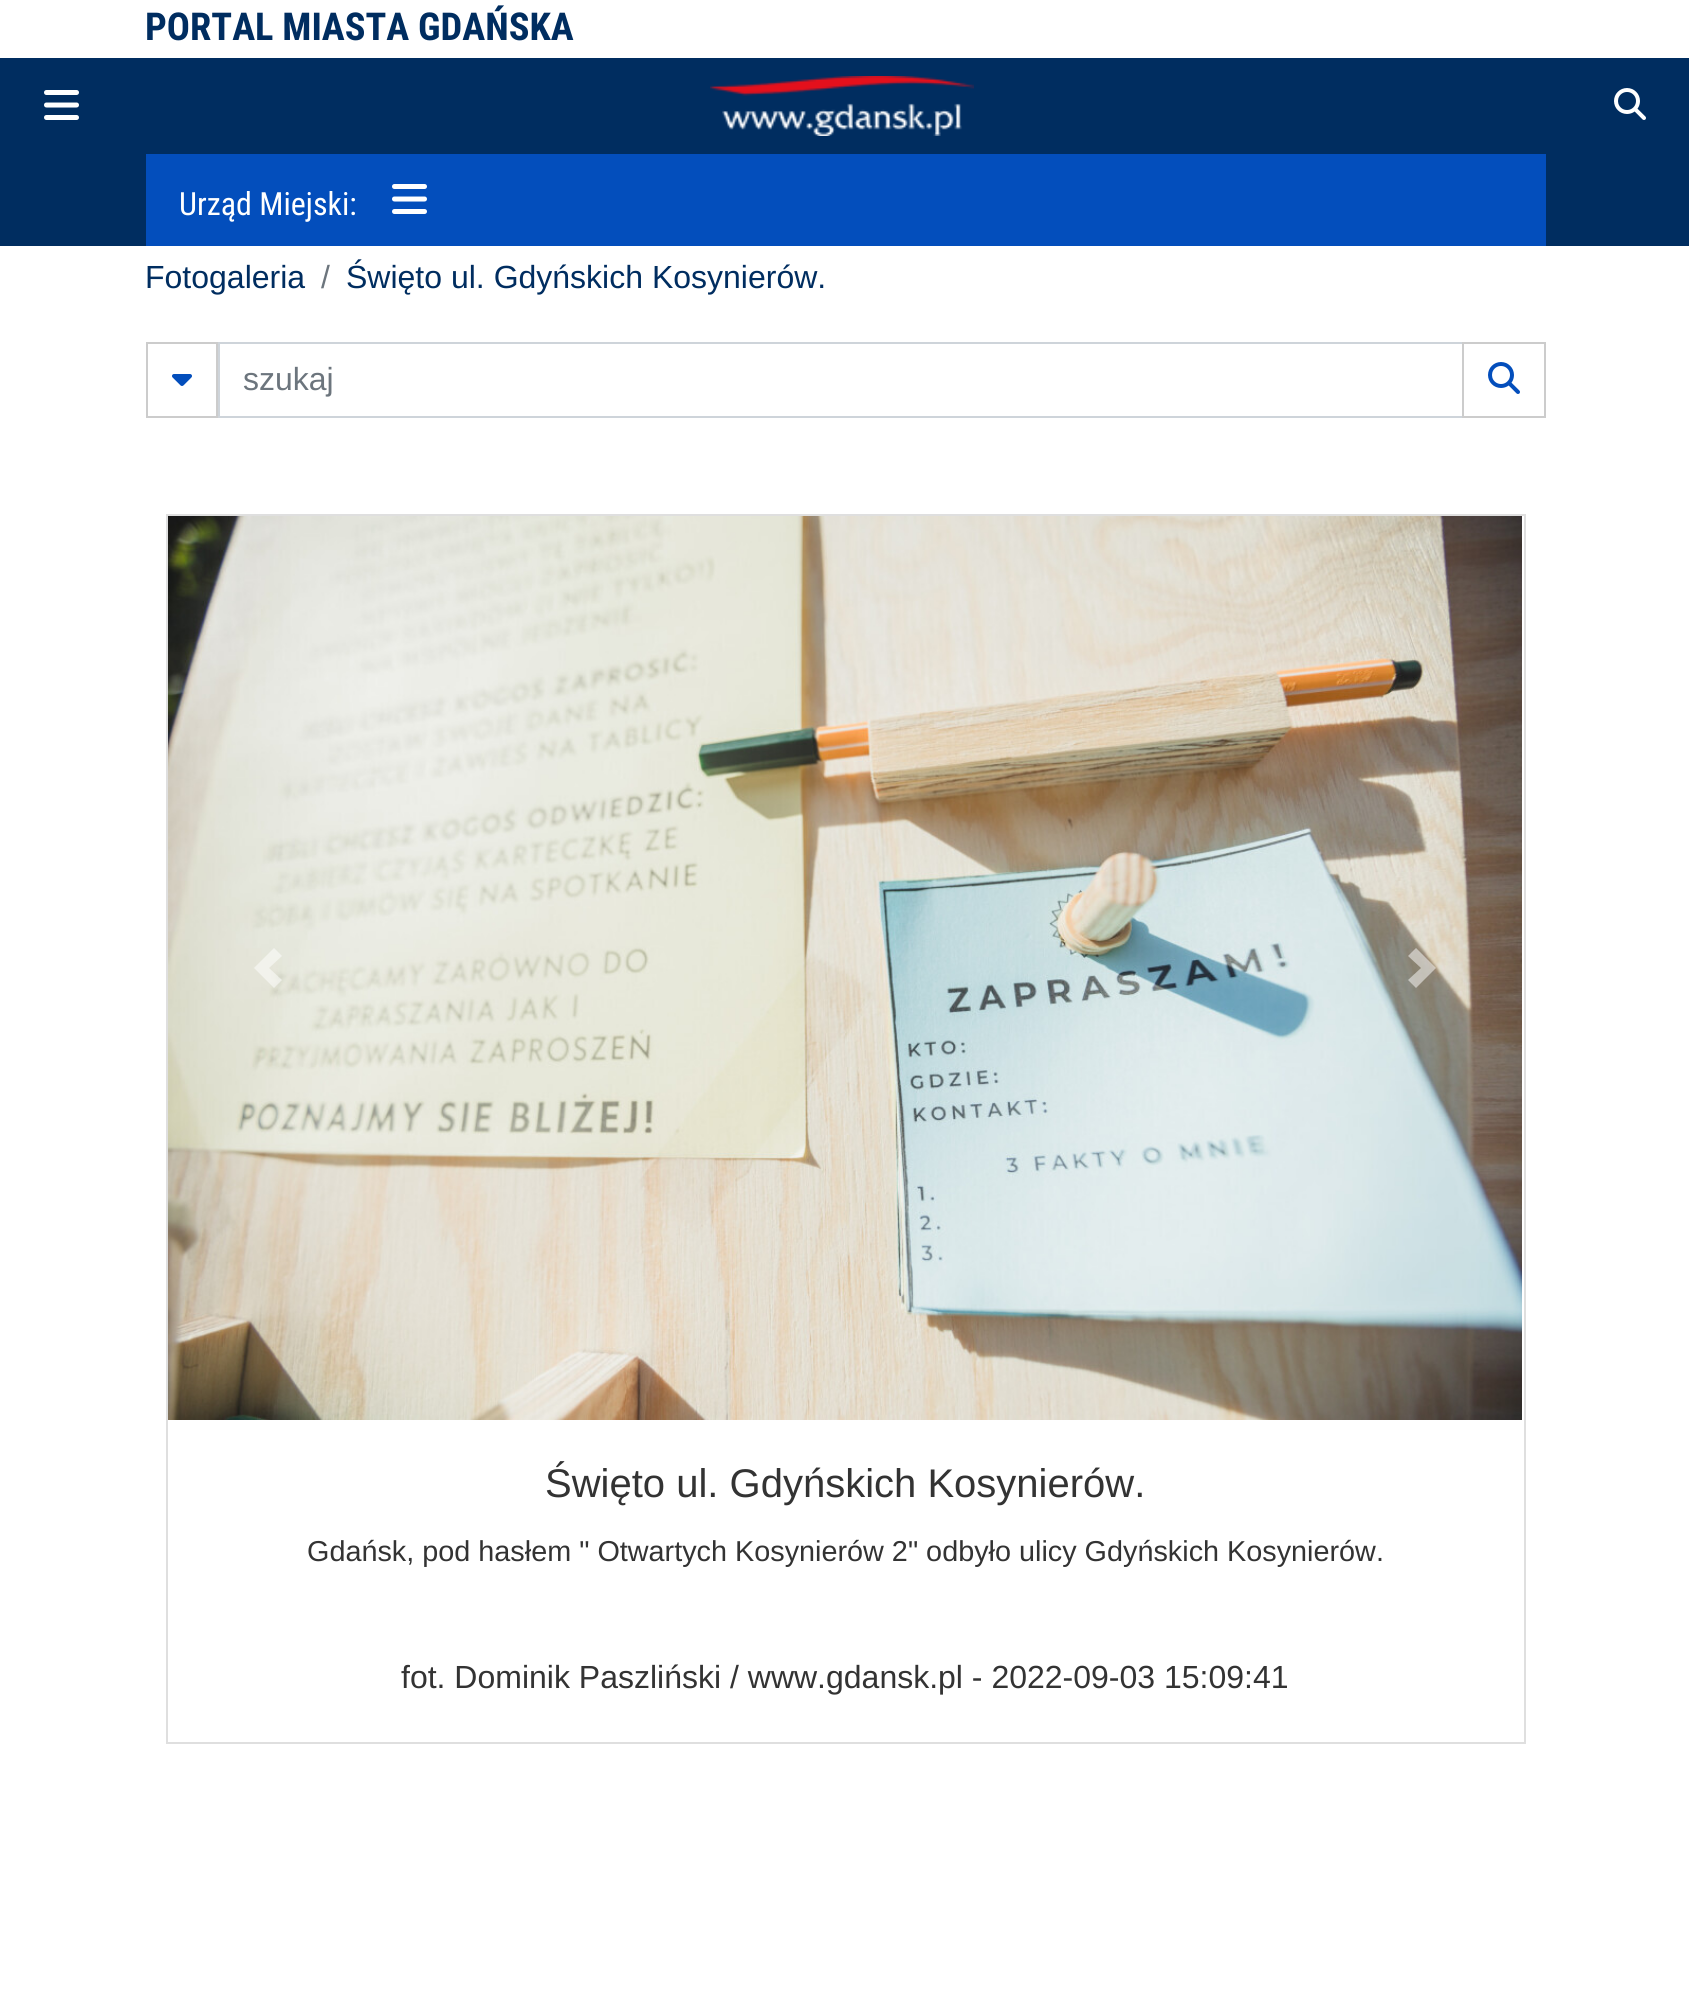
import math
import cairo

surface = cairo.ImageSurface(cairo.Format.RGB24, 1689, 2002)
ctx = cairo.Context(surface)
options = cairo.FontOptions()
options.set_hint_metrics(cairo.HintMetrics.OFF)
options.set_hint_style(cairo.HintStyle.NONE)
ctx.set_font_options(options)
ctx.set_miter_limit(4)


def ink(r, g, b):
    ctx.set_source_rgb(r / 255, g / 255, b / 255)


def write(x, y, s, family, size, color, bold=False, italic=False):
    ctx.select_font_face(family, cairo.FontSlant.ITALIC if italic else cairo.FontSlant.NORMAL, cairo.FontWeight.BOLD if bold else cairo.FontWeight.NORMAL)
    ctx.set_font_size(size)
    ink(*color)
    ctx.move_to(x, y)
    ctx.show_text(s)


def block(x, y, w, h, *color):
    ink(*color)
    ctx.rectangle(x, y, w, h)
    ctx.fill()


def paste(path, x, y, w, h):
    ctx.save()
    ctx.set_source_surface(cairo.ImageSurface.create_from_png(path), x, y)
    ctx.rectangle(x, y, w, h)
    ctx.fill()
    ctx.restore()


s1 = dict(family="Roboto Condensed", size=38.4, color=(0, 45, 96), bold=True)
s2 = dict(family="Roboto Condensed", size=32, color=(255, 255, 255))
s3 = dict(family="Liberation Sans", size=32, color=(0, 45, 96))
s4 = dict(family="Liberation Sans", size=32, color=(108, 117, 125))
s5 = dict(family="Liberation Sans", size=40, color=(51, 51, 51))
s6 = dict(family="Liberation Sans", size=28.8, color=(51, 51, 51))
s7 = dict(family="Liberation Sans", size=32, color=(51, 51, 51))

ink(255, 255, 255)
ctx.paint()
write(145, 40, "PORTAL MIASTA GDAŃSKA", **s1)
block(0, 58, 1689, 188, 0, 45, 96)
paste("pic1.png", 44, 90, 35, 30)
paste("pic2.png", 710, 76, 264, 60)
paste("pic3.png", 1614, 88, 32, 32)
block(146, 154, 1400, 92, 3, 78, 188)
write(179, 215, "Urząd Miejski:", **s2)
paste("pic4.png", 392, 184, 35, 30)
write(145, 288, "Fotogaleria", **s3)
write(321, 288, "/", **s4)
write(346, 288, "Święto ul. Gdyńskich Kosynierów.", **s3)
ctx.rectangle(147, 343, 70, 74)
ink(204, 204, 204)
ctx.stroke()
paste("pic5.png", 172, 374, 20, 12)
ctx.rectangle(219, 343, 1244, 74)
ink(206, 212, 218)
ctx.stroke()
write(243, 390, "szukaj", **s4)
ctx.rectangle(1463, 343, 82, 74)
ink(204, 204, 204)
ctx.stroke()
paste("pic6.png", 1488, 362, 32, 32)
ctx.rectangle(167, 515, 1358, 1228)
ink(223, 223, 223)
ctx.stroke()
paste("pic7.png", 168, 516, 1354, 904)
ctx.set_source_rgba(1, 1, 1, 0.5)
ctx.new_path()
ctx.move_to(274, 948)
ctx.line_to(254, 968)
ctx.line_to(274, 988)
ctx.line_to(282, 980)
ctx.line_to(269, 968)
ctx.line_to(282, 956)
ctx.close_path()
ctx.fill()
ctx.new_path()
ctx.move_to(1416, 948)
ctx.line_to(1408, 956)
ctx.line_to(1421, 968)
ctx.line_to(1408, 980)
ctx.line_to(1416, 988)
ctx.line_to(1436, 968)
ctx.close_path()
ctx.fill()
write(545, 1497, "Święto ul. Gdyńskich Kosynierów.", **s5)
write(307, 1561, "Gdańsk, pod hasłem \" Otwartych Kosynierów 2\" odbyło ulicy Gdyńskich Kosynierów.", **s6)
write(401, 1688, "fot. Dominik Paszliński / www.gdansk.pl - 2022-09-03 15:09:41", **s7)
surface.write_to_png("screenshot.png")
